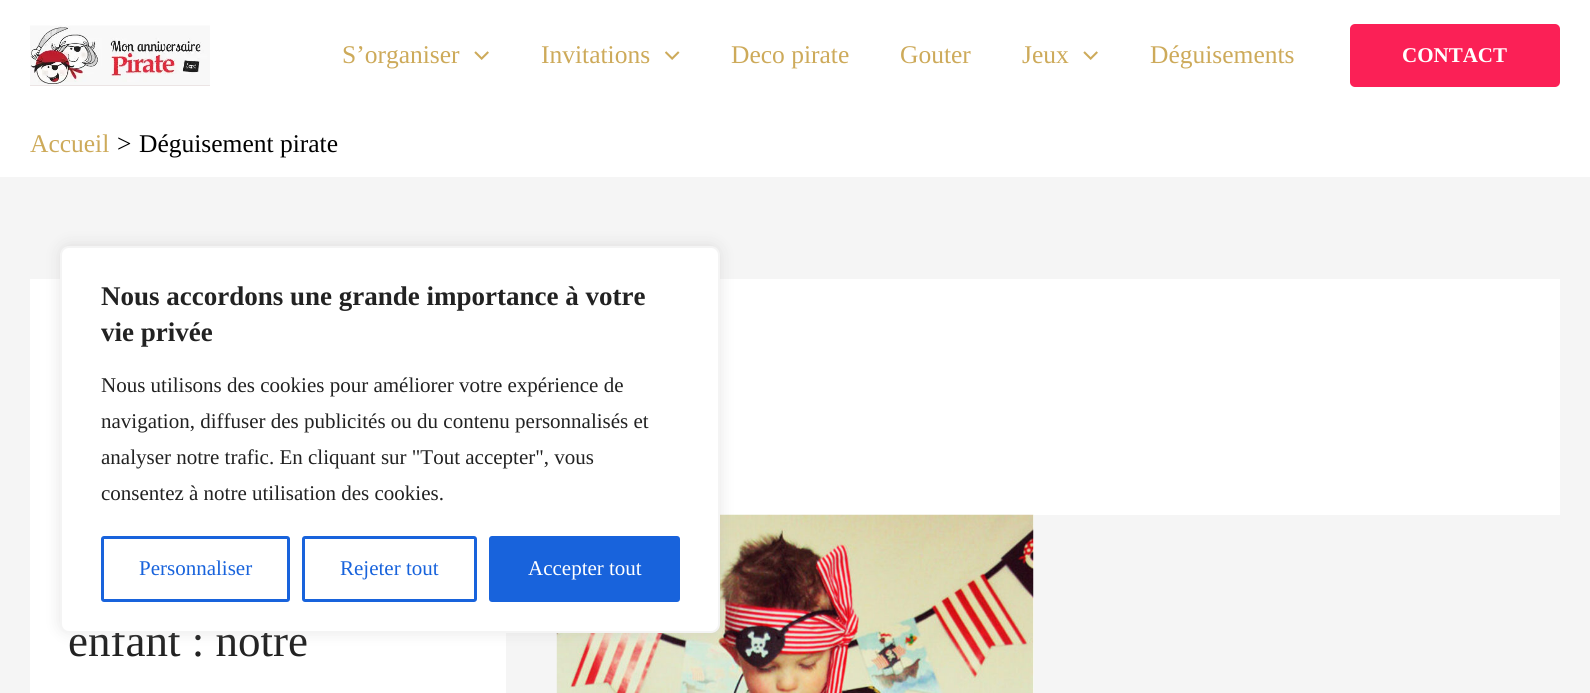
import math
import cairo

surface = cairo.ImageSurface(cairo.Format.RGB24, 1590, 693)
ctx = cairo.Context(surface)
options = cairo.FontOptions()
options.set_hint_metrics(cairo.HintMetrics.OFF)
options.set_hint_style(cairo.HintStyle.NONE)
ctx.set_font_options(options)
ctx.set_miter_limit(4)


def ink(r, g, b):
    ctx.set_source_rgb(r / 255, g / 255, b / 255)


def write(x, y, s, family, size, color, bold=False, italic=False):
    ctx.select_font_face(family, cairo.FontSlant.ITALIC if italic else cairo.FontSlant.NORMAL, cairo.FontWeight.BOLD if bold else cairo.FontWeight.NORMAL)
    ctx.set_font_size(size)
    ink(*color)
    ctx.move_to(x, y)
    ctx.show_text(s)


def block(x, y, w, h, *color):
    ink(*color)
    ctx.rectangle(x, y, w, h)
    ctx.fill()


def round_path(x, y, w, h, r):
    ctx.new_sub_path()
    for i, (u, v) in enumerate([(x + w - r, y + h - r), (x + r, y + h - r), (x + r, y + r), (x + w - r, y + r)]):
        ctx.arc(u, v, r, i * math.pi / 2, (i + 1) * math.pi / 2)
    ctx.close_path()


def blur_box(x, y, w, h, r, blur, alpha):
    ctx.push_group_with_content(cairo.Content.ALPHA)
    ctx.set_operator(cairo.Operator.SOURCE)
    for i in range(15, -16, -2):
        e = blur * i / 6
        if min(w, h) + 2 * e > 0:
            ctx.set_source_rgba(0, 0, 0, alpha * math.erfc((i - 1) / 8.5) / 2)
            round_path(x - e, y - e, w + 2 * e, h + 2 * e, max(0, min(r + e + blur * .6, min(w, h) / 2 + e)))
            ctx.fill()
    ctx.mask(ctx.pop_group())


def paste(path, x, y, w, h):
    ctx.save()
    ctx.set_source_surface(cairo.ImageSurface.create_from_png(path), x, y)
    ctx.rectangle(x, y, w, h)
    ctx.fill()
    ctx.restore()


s1 = dict(family="Liberation Serif", size=25.5, color=(205, 170, 90))
s2 = dict(family="Liberation Serif", size=21, color=(255, 255, 255), bold=True)
s3 = dict(family="Liberation Serif", size=25.5, color=(0, 0, 0))
s4 = dict(family="Liberation Serif", size=45, color=(34, 34, 34))
s5 = dict(family="Liberation Serif", size=27, color=(34, 34, 34), bold=True)
s6 = dict(family="Liberation Serif", size=21, color=(34, 34, 34))
s7 = dict(family="Liberation Serif", size=21, color=(24, 99, 220))
s8 = dict(family="Liberation Serif", size=21, color=(255, 255, 255))

ink(245, 245, 245)
ctx.paint()
block(0, 0, 1590, 177, 255, 255, 255)
block(30, 85, 180, 1, 223, 208, 209)
paste("pic1.png", 30, 25, 180, 61)
write(342, 63, "S’organiser", **s1)
paste("pic2.png", 474, 51, 15, 9)
write(541, 63, "Invitations", **s1)
paste("pic3.png", 665, 51, 15, 9)
write(731, 63, "Deco pirate", **s1)
write(900, 63, "Gouter", **s1)
write(1022, 63, "Jeux", **s1)
paste("pic2.png", 1083, 51, 15, 9)
write(1150, 63, "Déguisements", **s1)
ink(251, 32, 86)
round_path(1350, 24, 210, 63, 5)
ctx.fill()
write(1402, 62, "CONTACT", **s2)
write(30, 152, "Accueil", **s1)
write(117, 152, ">", **s3)
write(139, 152, "Déguisement pirate", **s3)
block(30, 279, 1530, 236, 255, 255, 255)
block(30, 515, 476, 178, 255, 255, 255)
write(68, 656, "enfant : notre", **s4)
block(1033, 515, 1, 178, 255, 255, 255)
paste("pic4.png", 556, 514, 478, 179)
ink(172, 171, 171)
blur_box(60, 245, 660, 387, 9, 7.5, 0.3)
ink(255, 255, 255)
round_path(61, 247, 658, 385, 8)
ctx.fill_preserve()
ink(244, 244, 244)
ctx.stroke()
write(101, 305, "Nous accordons une grande importance à votre", **s5)
write(101, 341, "vie privée", **s5)
write(101, 392, "Nous utilisons des cookies pour améliorer votre expérience de", **s6)
write(101, 428, "navigation, diffuser des publicités ou du contenu personnalisés et", **s6)
write(101, 464, "analyser notre trafic. En cliquant sur \"Tout accepter\", vous", **s6)
write(101, 500, "consentez à notre utilisation des cookies.", **s6)
round_path(102.5, 537.5, 186, 63, 1.5)
ink(24, 99, 220)
ctx.set_line_width(3)
ctx.stroke()
write(139, 575, "Personnaliser", **s7)
round_path(303.5, 537.5, 172, 63, 1.5)
ctx.stroke()
write(340, 575, "Rejeter tout", **s7)
round_path(490.5, 537.5, 188, 63, 1.5)
ctx.fill_preserve()
ctx.stroke()
write(528, 575, "Accepter tout", **s8)
surface.write_to_png("screenshot.png")
